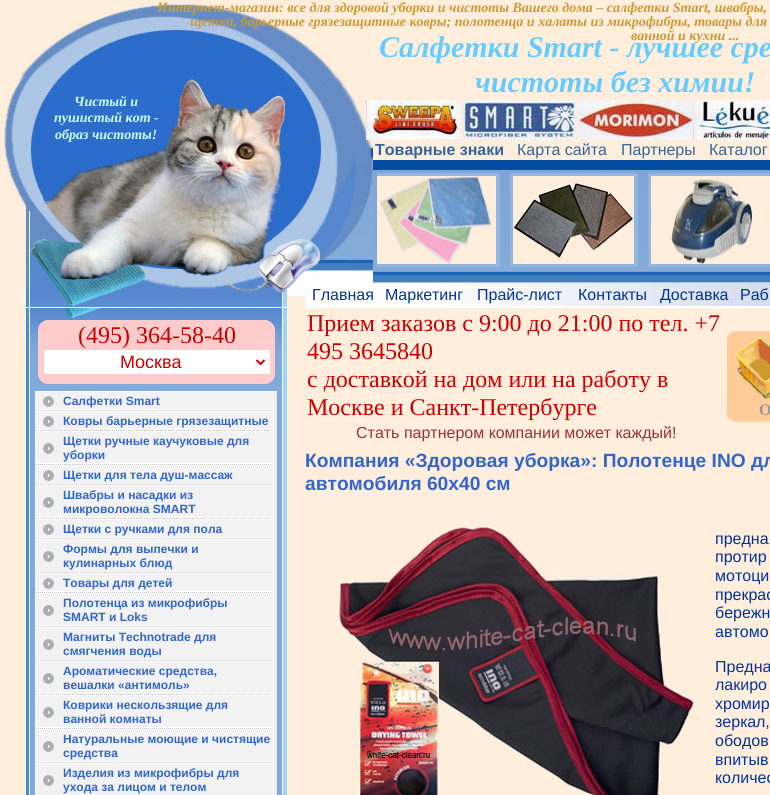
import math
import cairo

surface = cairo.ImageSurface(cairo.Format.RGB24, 770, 795)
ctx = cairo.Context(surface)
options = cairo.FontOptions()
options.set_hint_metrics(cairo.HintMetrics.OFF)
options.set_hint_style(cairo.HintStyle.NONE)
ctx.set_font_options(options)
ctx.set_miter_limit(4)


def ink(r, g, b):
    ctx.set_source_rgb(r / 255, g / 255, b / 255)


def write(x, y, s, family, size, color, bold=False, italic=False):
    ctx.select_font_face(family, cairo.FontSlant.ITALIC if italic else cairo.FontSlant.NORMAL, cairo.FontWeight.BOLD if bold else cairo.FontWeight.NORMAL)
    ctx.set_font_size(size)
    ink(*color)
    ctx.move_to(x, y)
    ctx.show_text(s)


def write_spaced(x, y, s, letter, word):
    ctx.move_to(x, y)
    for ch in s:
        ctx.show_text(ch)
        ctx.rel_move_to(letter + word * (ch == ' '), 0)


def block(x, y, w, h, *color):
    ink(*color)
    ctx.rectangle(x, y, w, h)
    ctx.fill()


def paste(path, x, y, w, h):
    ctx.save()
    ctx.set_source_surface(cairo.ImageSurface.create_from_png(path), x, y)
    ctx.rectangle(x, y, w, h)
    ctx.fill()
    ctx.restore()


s1 = dict(family="Liberation Serif", size=14, color=(204, 153, 51), bold=True, italic=True)
s2 = dict(family="Liberation Serif", size=30, color=(102, 204, 255), bold=True, italic=True)
s3 = dict(family="Liberation Serif", size=14, color=(204, 255, 255), bold=True, italic=True)
s4 = dict(family="Liberation Sans", size=16, color=(51, 102, 153), bold=True)
s5 = dict(family="Liberation Sans", size=16, color=(51, 102, 153))
s6 = dict(family="Liberation Sans", size=16, color=(0, 51, 153))
s7 = dict(family="Liberation Serif", size=24, color=(204, 0, 0))
s8 = dict(family="Liberation Sans", size=18, color=(204, 0, 0))
s9 = dict(family="Liberation Sans", size=12, color=(51, 102, 204), bold=True)
s10 = dict(family="Liberation Serif", size=16, color=(153, 153, 153), bold=True)
s11 = dict(family="Liberation Sans", size=16, color=(153, 51, 51))
s12 = dict(family="Liberation Sans", size=19.2, color=(51, 102, 204), bold=True)

ink(255, 238, 220)
ctx.paint()
paste("pic1.png", 0, 0, 373, 307)
write(157, 12, "Интернет-магазин: все для здоровой уборки и чистоты Вашего дома – салфетки Smart, швабры,", **s1)
write(190, 26, "щетки, барьерные грязезащитные ковры; полотенца и халаты из микрофибры, товары для", **s1)
write(379, 57, "Салфетки Smart - лучшее сре", **s2)
write(631, 40, "ванной и кухни ...", **s1)
write(475, 92, "чистоты без химии!", **s2)
paste("pic2.png", 366, 100, 95, 40)
paste("pic3.png", 463, 100, 113, 40)
paste("pic4.png", 578, 100, 116, 40)
paste("pic5.png", 695, 100, 75, 40)
write(74, 106, "Чистый и", **s3)
write(54, 122, "пушистый кот -", **s3)
write(55, 139, "образ чистоты!", **s3)
write(375, 155, "Товарные знаки", **s4)
write(517, 155, "Карта сайта", **s5)
write(621, 155, "Партнеры", **s5)
write(709, 155, "Каталог", **s5)
paste("pic6.png", 373, 160, 397, 123)
paste("pic7.png", 377, 173, 123, 94)
paste("pic8.png", 377, 176, 119, 88)
paste("pic9.png", 510, 173, 128, 94)
paste("pic10.png", 513, 176, 121, 88)
paste("pic11.png", 648, 173, 122, 94)
paste("pic12.png", 651, 176, 119, 88)
block(305, 283, 465, 25, 255, 255, 255)
paste("pic13.png", 447, 283, 323, 23)
write(312, 300, "Главная", **s6)
write(385, 300, "Маркетинг", **s6)
write(477, 300, "Прайс-лист", **s6)
write(578, 300, "Контакты", **s6)
write(660, 300, "Доставка", **s6)
write(740, 300, "Раб", **s6)
paste("pic14.png", 26, 308, 261, 487)
paste("pic15.png", 26, 308, 257, 45)
block(38, 320, 237, 64, 255, 204, 204)
paste("pic16.png", 38, 320, 9, 10)
paste("pic17.png", 266, 320, 9, 9)
write(78, 343, "(495) 364-58-40", **s7)
block(44, 350, 226, 24, 255, 255, 255)
ctx.new_path()
ctx.move_to(256.5, 360)
ctx.line_to(260.5, 364)
ctx.line_to(264.5, 360)
ink(204, 0, 0)
ctx.stroke()
write(120, 368, "Москва", **s8)
paste("pic18.png", 38, 374, 9, 10)
paste("pic19.png", 266, 374, 9, 10)
block(36, 392, 237, 403, 242, 242, 243)
paste("pic20.png", 273, 392, 4, 403)
block(35, 391, 242, 1, 255, 255, 255)
block(35, 391, 1, 404, 255, 255, 255)
paste("pic21.png", 36, 409, 236, 3)
paste("pic22.png", 43, 396, 11, 11)
write(63, 405, "Салфетки Smart", **s9)
paste("pic21.png", 36, 429, 236, 3)
paste("pic22.png", 43, 416, 11, 11)
write(63, 425, "Ковры барьерные грязезащитные", **s9)
paste("pic21.png", 36, 463, 236, 3)
paste("pic22.png", 43, 443, 11, 11)
write(63, 445, "Щетки ручные каучуковые для", **s9)
write(63, 459, "уборки", **s9)
paste("pic21.png", 36, 483, 236, 3)
paste("pic22.png", 43, 470, 11, 11)
write(63, 479, "Щетки для тела душ-массаж", **s9)
paste("pic21.png", 36, 517, 236, 3)
paste("pic22.png", 43, 497, 11, 11)
write(63, 499, "Швабры и насадки из", **s9)
write(63, 513, "микроволокна SMART", **s9)
paste("pic21.png", 36, 537, 236, 3)
paste("pic22.png", 43, 524, 11, 11)
write(63, 533, "Щетки с ручками для пола", **s9)
paste("pic21.png", 36, 571, 236, 3)
paste("pic22.png", 43, 551, 11, 11)
write(63, 553, "Формы для выпечки и", **s9)
write(63, 567, "кулинарных блюд", **s9)
paste("pic21.png", 36, 591, 236, 3)
paste("pic22.png", 43, 578, 11, 11)
write(63, 587, "Товары для детей", **s9)
paste("pic21.png", 36, 625, 236, 3)
paste("pic22.png", 43, 605, 11, 11)
write(63, 607, "Полотенца из микрофибры", **s9)
write(63, 621, "SMART и Loks", **s9)
paste("pic21.png", 36, 659, 236, 3)
paste("pic22.png", 43, 639, 11, 11)
write(63, 641, "Магниты Technotrade для", **s9)
write(63, 655, "смягчения воды", **s9)
paste("pic21.png", 36, 693, 236, 3)
paste("pic22.png", 43, 673, 11, 11)
write(63, 675, "Ароматические средства,", **s9)
write(63, 689, "вешалки «антимоль»", **s9)
paste("pic21.png", 36, 727, 236, 3)
paste("pic22.png", 43, 707, 11, 11)
write(63, 709, "Коврики нескользящие для", **s9)
write(63, 723, "ванной комнаты", **s9)
paste("pic21.png", 36, 761, 236, 3)
paste("pic22.png", 43, 741, 11, 11)
write(63, 743, "Натуральные моющие и чистящие", **s9)
write(63, 757, "средства", **s9)
paste("pic22.png", 43, 775, 11, 11)
write(63, 777, "Изделия из микрофибры для", **s9)
write(63, 791, "ухода за лицом и телом", **s9)
write(307, 331, "Прием заказов с 9:00 до 21:00 по тел. +7", **s7)
write(307, 359, "495 3645840", **s7)
write(307, 387, "с доставкой на дом или на работу в", **s7)
write(307, 415, "Москве и Санкт-Петербурге", **s7)
block(727, 338, 43, 77, 255, 204, 153)
paste("pic23.png", 727, 331, 43, 7)
paste("pic24.png", 734, 337, 36, 62)
paste("pic25.png", 727, 415, 43, 7)
write(759, 415, "О", **s10)
write(356, 438, "Стать партнером компании может каждый!", **s11)
write(305, 467, "Компания «Здоровая уборка»: Полотенце INO дл", **s12)
write(305, 490, "автомобиля 60х40 см", **s12)
paste("pic26.png", 334, 524, 360, 271)
ctx.select_font_face("Liberation Sans")
ctx.set_font_size(16)
ink(0, 51, 153)
write_spaced(715, 544, "предна", 0, 85)
write_spaced(715, 562, "протир", 0, 9)
write_spaced(715, 581, "мотоци", 0, 5)
write_spaced(715, 600, "прекрас", 0, 24)
write_spaced(715, 618, "бережн", 0, 42)
write(715, 637, "автомо", **s6)
write_spaced(715, 672, "Предна", 0, 4)
write_spaced(715, 690, "лакиро", 0, 111)
write_spaced(715, 709, "хромир", 0, 1)
write_spaced(715, 727, "зеркал,", 0, 24)
write_spaced(715, 746, "ободов", 0, 4)
write_spaced(715, 765, "впитыв", 0, 81)
write_spaced(715, 783, "количес", 0, 23)
surface.write_to_png("screenshot.png")
